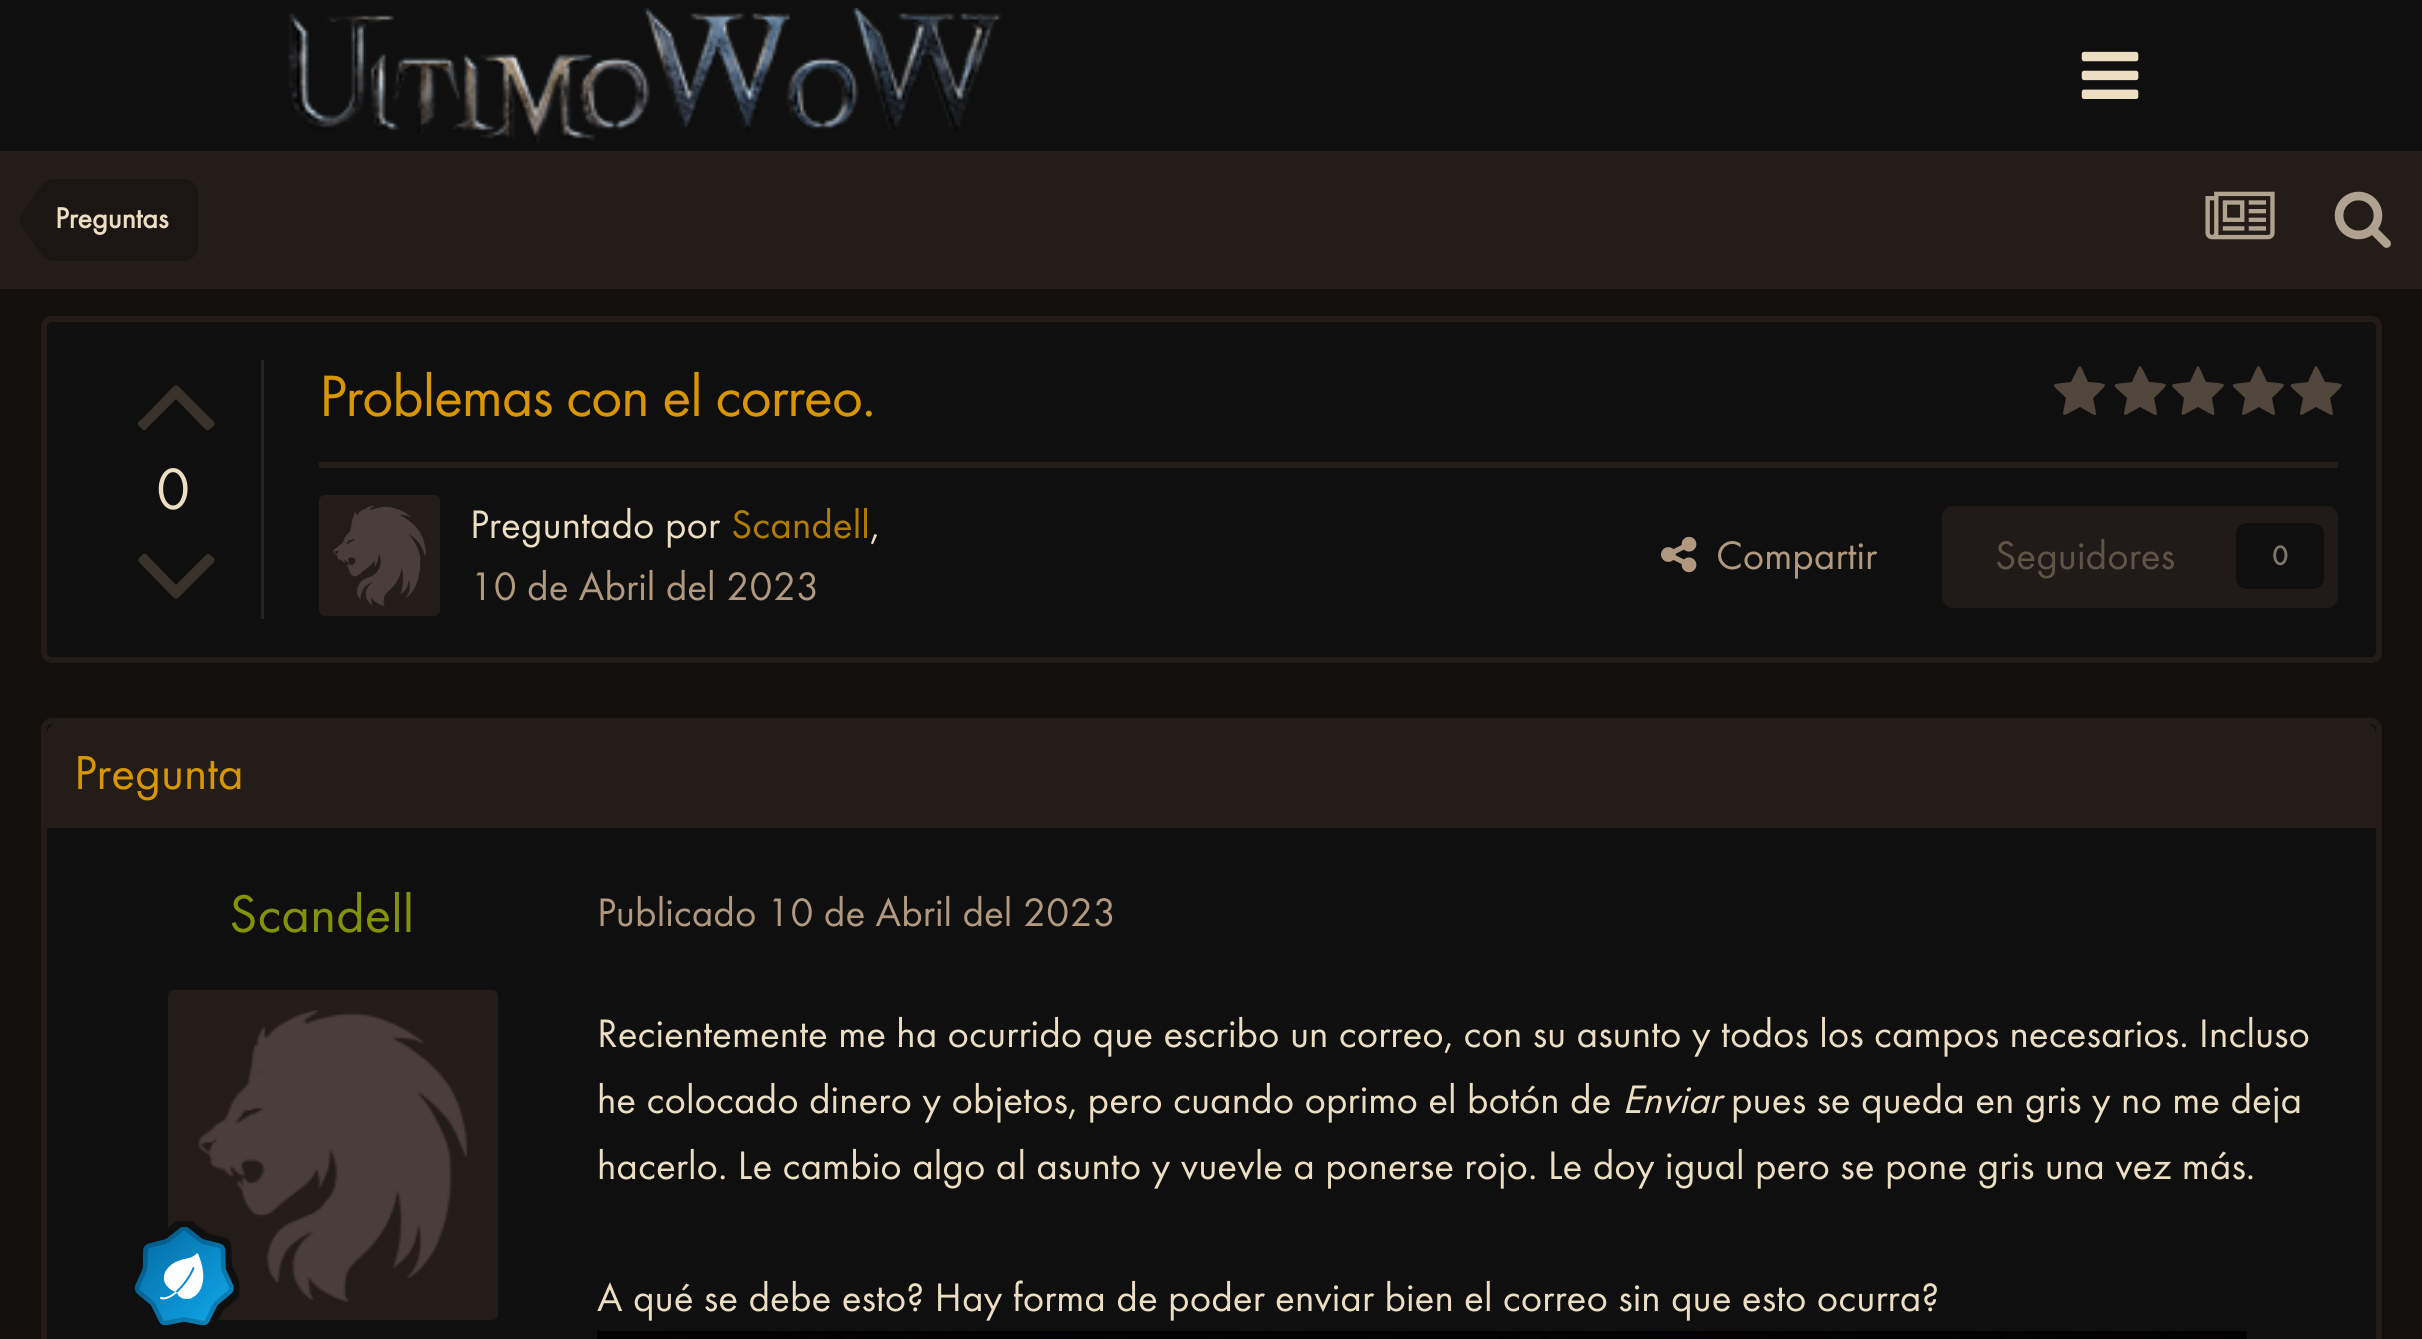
import math
import cairo

surface = cairo.ImageSurface(cairo.Format.RGB24, 2422, 1339)
ctx = cairo.Context(surface)
options = cairo.FontOptions()
options.set_hint_metrics(cairo.HintMetrics.OFF)
options.set_hint_style(cairo.HintStyle.NONE)
ctx.set_font_options(options)
ctx.set_miter_limit(4)


def ink(r, g, b):
    ctx.set_source_rgb(r / 255, g / 255, b / 255)


def write(x, y, s, family, size, color, bold=False, italic=False):
    ctx.select_font_face(family, cairo.FontSlant.ITALIC if italic else cairo.FontSlant.NORMAL, cairo.FontWeight.BOLD if bold else cairo.FontWeight.NORMAL)
    ctx.set_font_size(size)
    ink(*color)
    ctx.move_to(x, y)
    ctx.show_text(s)


def write_spaced(x, y, s, letter, word):
    ctx.move_to(x, y)
    for ch in s:
        ctx.show_text(ch)
        ctx.rel_move_to(letter + word * (ch == ' '), 0)


def block(x, y, w, h, *color):
    ink(*color)
    ctx.rectangle(x, y, w, h)
    ctx.fill()


def round_path(x, y, w, h, r):
    ctx.new_sub_path()
    for i, (u, v) in enumerate([(x + w - r, y + h - r), (x + r, y + h - r), (x + r, y + r), (x + w - r, y + r)]):
        ctx.arc(u, v, r, i * math.pi / 2, (i + 1) * math.pi / 2)
    ctx.close_path()


def paste(path, x, y, w, h):
    ctx.save()
    ctx.set_source_surface(cairo.ImageSurface.create_from_png(path), x, y)
    ctx.rectangle(x, y, w, h)
    ctx.fill()
    ctx.restore()


s1 = dict(family="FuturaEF", size=30, color=(235, 222, 194), bold=True)
s2 = dict(family="FuturaEF", size=60.5, color=(235, 222, 194))
s3 = dict(family="FuturaEF", size=41.25, color=(235, 222, 194))
s4 = dict(family="FuturaEF", size=41.25, color=(177, 124, 2))
s5 = dict(family="FuturaEF", size=41.25, color=(177, 153, 127))
s6 = dict(family="FuturaEF", size=41.25, color=(96, 84, 71))
s7 = dict(family="FuturaEF", size=28, color=(125, 119, 105), bold=True)
s8 = dict(family="FuturaEF", size=49.5, color=(215, 150, 2))
s9 = dict(family="FuturaEF", size=55, color=(131, 147, 9))
s10 = dict(family="FuturaEF", size=41.25, color=(235, 222, 194), italic=True)

ink(19, 15, 13)
ctx.paint()
block(0, 0, 2422, 151, 15, 15, 15)
paste("pic1.png", 288, 8, 714, 135)
paste("pic2.png", 2081, 51, 58, 48)
block(0, 151, 2422, 138, 36, 28, 25)
ink(27, 21, 19)
ctx.new_path()
ctx.move_to(55, 179)
ctx.line_to(184, 179)
ctx.curve_to(191.5, 179, 198, 185.5, 198, 193)
ctx.line_to(198, 247)
ctx.curve_to(198, 254.5, 191.5, 261, 184, 261)
ctx.line_to(55, 261)
ctx.close_path()
ctx.fill()
ctx.new_path()
ctx.move_to(55, 220)
ctx.line_to(55, 261)
ctx.curve_to(49, 261, 44, 258, 39, 251)
ctx.line_to(21, 225)
ctx.curve_to(20, 224, 20, 222, 20, 220)
ctx.close_path()
ctx.fill()
ctx.new_path()
ctx.move_to(55, 220)
ctx.line_to(20, 220)
ctx.curve_to(20, 218, 20, 216, 21, 215)
ctx.line_to(39, 189)
ctx.curve_to(44, 182, 49, 179, 55, 179)
ctx.close_path()
ctx.fill()
write(55, 228, "Preguntas", **s1)
paste("pic3.png", 2205, 191, 70, 49)
paste("pic4.png", 2334, 191, 57, 57)
ink(15, 15, 15)
round_path(44, 319, 2335, 341, 8)
ctx.fill_preserve()
ink(36, 28, 25)
ctx.set_line_width(6)
ctx.stroke()
block(261, 360, 3, 259, 39, 36, 32)
ink(56, 50, 43)
ctx.new_path()
ctx.move_to(214, 422)
ctx.curve_to(216, 425, 213, 427, 211, 428)
ctx.curve_to(207, 433, 206, 429, 201, 425)
ctx.line_to(176, 399)
ctx.line_to(145, 430)
ctx.curve_to(144, 431, 142, 429, 141, 428)
ctx.curve_to(135, 422, 138, 423, 145, 416)
ctx.line_to(168, 392)
ctx.curve_to(177, 383, 175, 383, 184, 392)
ctx.close_path()
ctx.fill()
write(156, 509, "0", **s2)
ink(56, 50, 43)
ctx.new_path()
ctx.move_to(214, 558)
ctx.curve_to(217, 562, 208, 567, 208, 568)
ctx.line_to(184, 592)
ctx.curve_to(175, 601, 177, 601, 168, 592)
ctx.line_to(139, 562)
ctx.curve_to(137, 560, 139, 558, 140, 557)
ctx.curve_to(141, 556, 144, 552, 146, 554)
ctx.line_to(176, 585)
ctx.line_to(206, 555)
ctx.curve_to(209, 552, 212, 557, 214, 558)
ctx.close_path()
ctx.fill()
ink(215, 150, 2)
write_spaced(319, 416, "Problemas con el correo.", -1.25, 0)
ink(80, 70, 60)
ctx.new_path()
ctx.move_to(2105, 385)
ctx.curve_to(2105, 387, 2095, 396, 2093, 398)
ctx.curve_to(2097, 420, 2100, 418, 2080, 407)
ctx.curve_to(2059, 418, 2062, 420, 2066, 398)
ctx.curve_to(2050, 382, 2048, 385, 2071, 382)
ctx.curve_to(2082, 361, 2078, 361, 2088, 382)
ctx.curve_to(2091, 382, 2105, 383, 2105, 385)
ctx.close_path()
ctx.fill()
ctx.new_path()
ctx.move_to(2166, 385)
ctx.curve_to(2166, 387, 2156, 396, 2154, 398)
ctx.curve_to(2158, 420, 2161, 418, 2140, 407)
ctx.curve_to(2120, 418, 2123, 420, 2127, 398)
ctx.curve_to(2110, 382, 2109, 385, 2132, 382)
ctx.curve_to(2142, 361, 2138, 361, 2149, 382)
ctx.curve_to(2151, 382, 2166, 383, 2166, 385)
ctx.close_path()
ctx.fill()
ctx.new_path()
ctx.move_to(2224, 385)
ctx.curve_to(2224, 387, 2213, 396, 2212, 398)
ctx.curve_to(2215, 420, 2219, 418, 2198, 407)
ctx.curve_to(2177, 418, 2181, 420, 2184, 398)
ctx.curve_to(2168, 382, 2166, 385, 2190, 382)
ctx.curve_to(2200, 361, 2196, 361, 2206, 382)
ctx.curve_to(2209, 382, 2224, 383, 2224, 385)
ctx.close_path()
ctx.fill()
ctx.new_path()
ctx.move_to(2284, 385)
ctx.curve_to(2284, 387, 2274, 396, 2272, 398)
ctx.curve_to(2276, 420, 2279, 418, 2259, 407)
ctx.curve_to(2238, 418, 2241, 420, 2245, 398)
ctx.curve_to(2229, 382, 2227, 385, 2250, 382)
ctx.curve_to(2260, 361, 2257, 361, 2267, 382)
ctx.curve_to(2270, 382, 2284, 383, 2284, 385)
ctx.close_path()
ctx.fill()
ctx.new_path()
ctx.move_to(2342, 385)
ctx.curve_to(2342, 387, 2332, 396, 2330, 398)
ctx.curve_to(2334, 420, 2337, 418, 2316, 407)
ctx.curve_to(2296, 418, 2299, 420, 2303, 398)
ctx.curve_to(2286, 382, 2285, 385, 2308, 382)
ctx.curve_to(2318, 361, 2314, 361, 2325, 382)
ctx.curve_to(2327, 382, 2342, 383, 2342, 385)
ctx.close_path()
ctx.fill()
block(319, 462, 2019, 6, 36, 28, 25)
round_path(322, 498, 115, 115, 3)
ctx.stroke()
paste("pic5.png", 325, 501, 109, 109)
write(470, 538, "Preguntado por", **s3)
write(731, 538, "Scandell", **s4)
write(870, 538, ",", **s3)
write(470, 600, "10 de Abril del 2023", **s5)
paste("pic6.png", 1661, 536, 36, 37)
write(1716, 569, "Compartir", **s5)
ink(32, 26, 24)
round_path(1942, 506, 396, 102, 11)
ctx.fill()
write(1995, 569, "Seguidores", **s6)
ink(15, 15, 15)
round_path(2236, 523, 88, 66, 11)
ctx.fill()
write(2272, 565, "0", **s7)
ink(15, 15, 15)
round_path(44, 721, 2335, 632, 8)
ctx.fill_preserve()
ink(36, 28, 25)
ctx.stroke()
ctx.new_path()
ctx.move_to(58, 723)
ctx.line_to(2365, 723)
ctx.curve_to(2371, 723, 2376, 728, 2376, 734)
ctx.line_to(2376, 828)
ctx.line_to(47, 828)
ctx.line_to(47, 734)
ctx.curve_to(47, 728, 52, 723, 58, 723)
ctx.close_path()
ctx.fill()
write(74, 789, "Pregunta", **s8)
write(229, 932, "Scandell", **s9)
round_path(171, 993, 324, 324, 3)
ink(36, 28, 25)
ctx.stroke()
paste("pic7.png", 174, 996, 318, 318)
paste("pic8.png", 135, 1221, 105, 105)
write(597, 926, "Publicado 10 de Abril del 2023", **s5)
write(597, 1047, "Recientemente me ha ocurrido que escribo un correo, con su asunto y todos los campos necesarios. Incluso", **s3)
write(597, 1113, "he colocado dinero y objetos, pero cuando oprimo el botón de", **s3)
write(1622, 1113, "Enviar", **s10)
write(1731, 1113, "pues se queda en gris y no me deja", **s3)
write(597, 1179, "hacerlo. Le cambio algo al asunto y vuevle a ponerse rojo. Le doy igual pero se pone gris una vez más.", **s3)
write(597, 1311, "A qué se debe esto? Hay forma de poder enviar bien el correo sin que esto ocurra?", **s3)
paste("pic9.png", 597, 1331, 1650, 8)
surface.write_to_png("screenshot.png")
